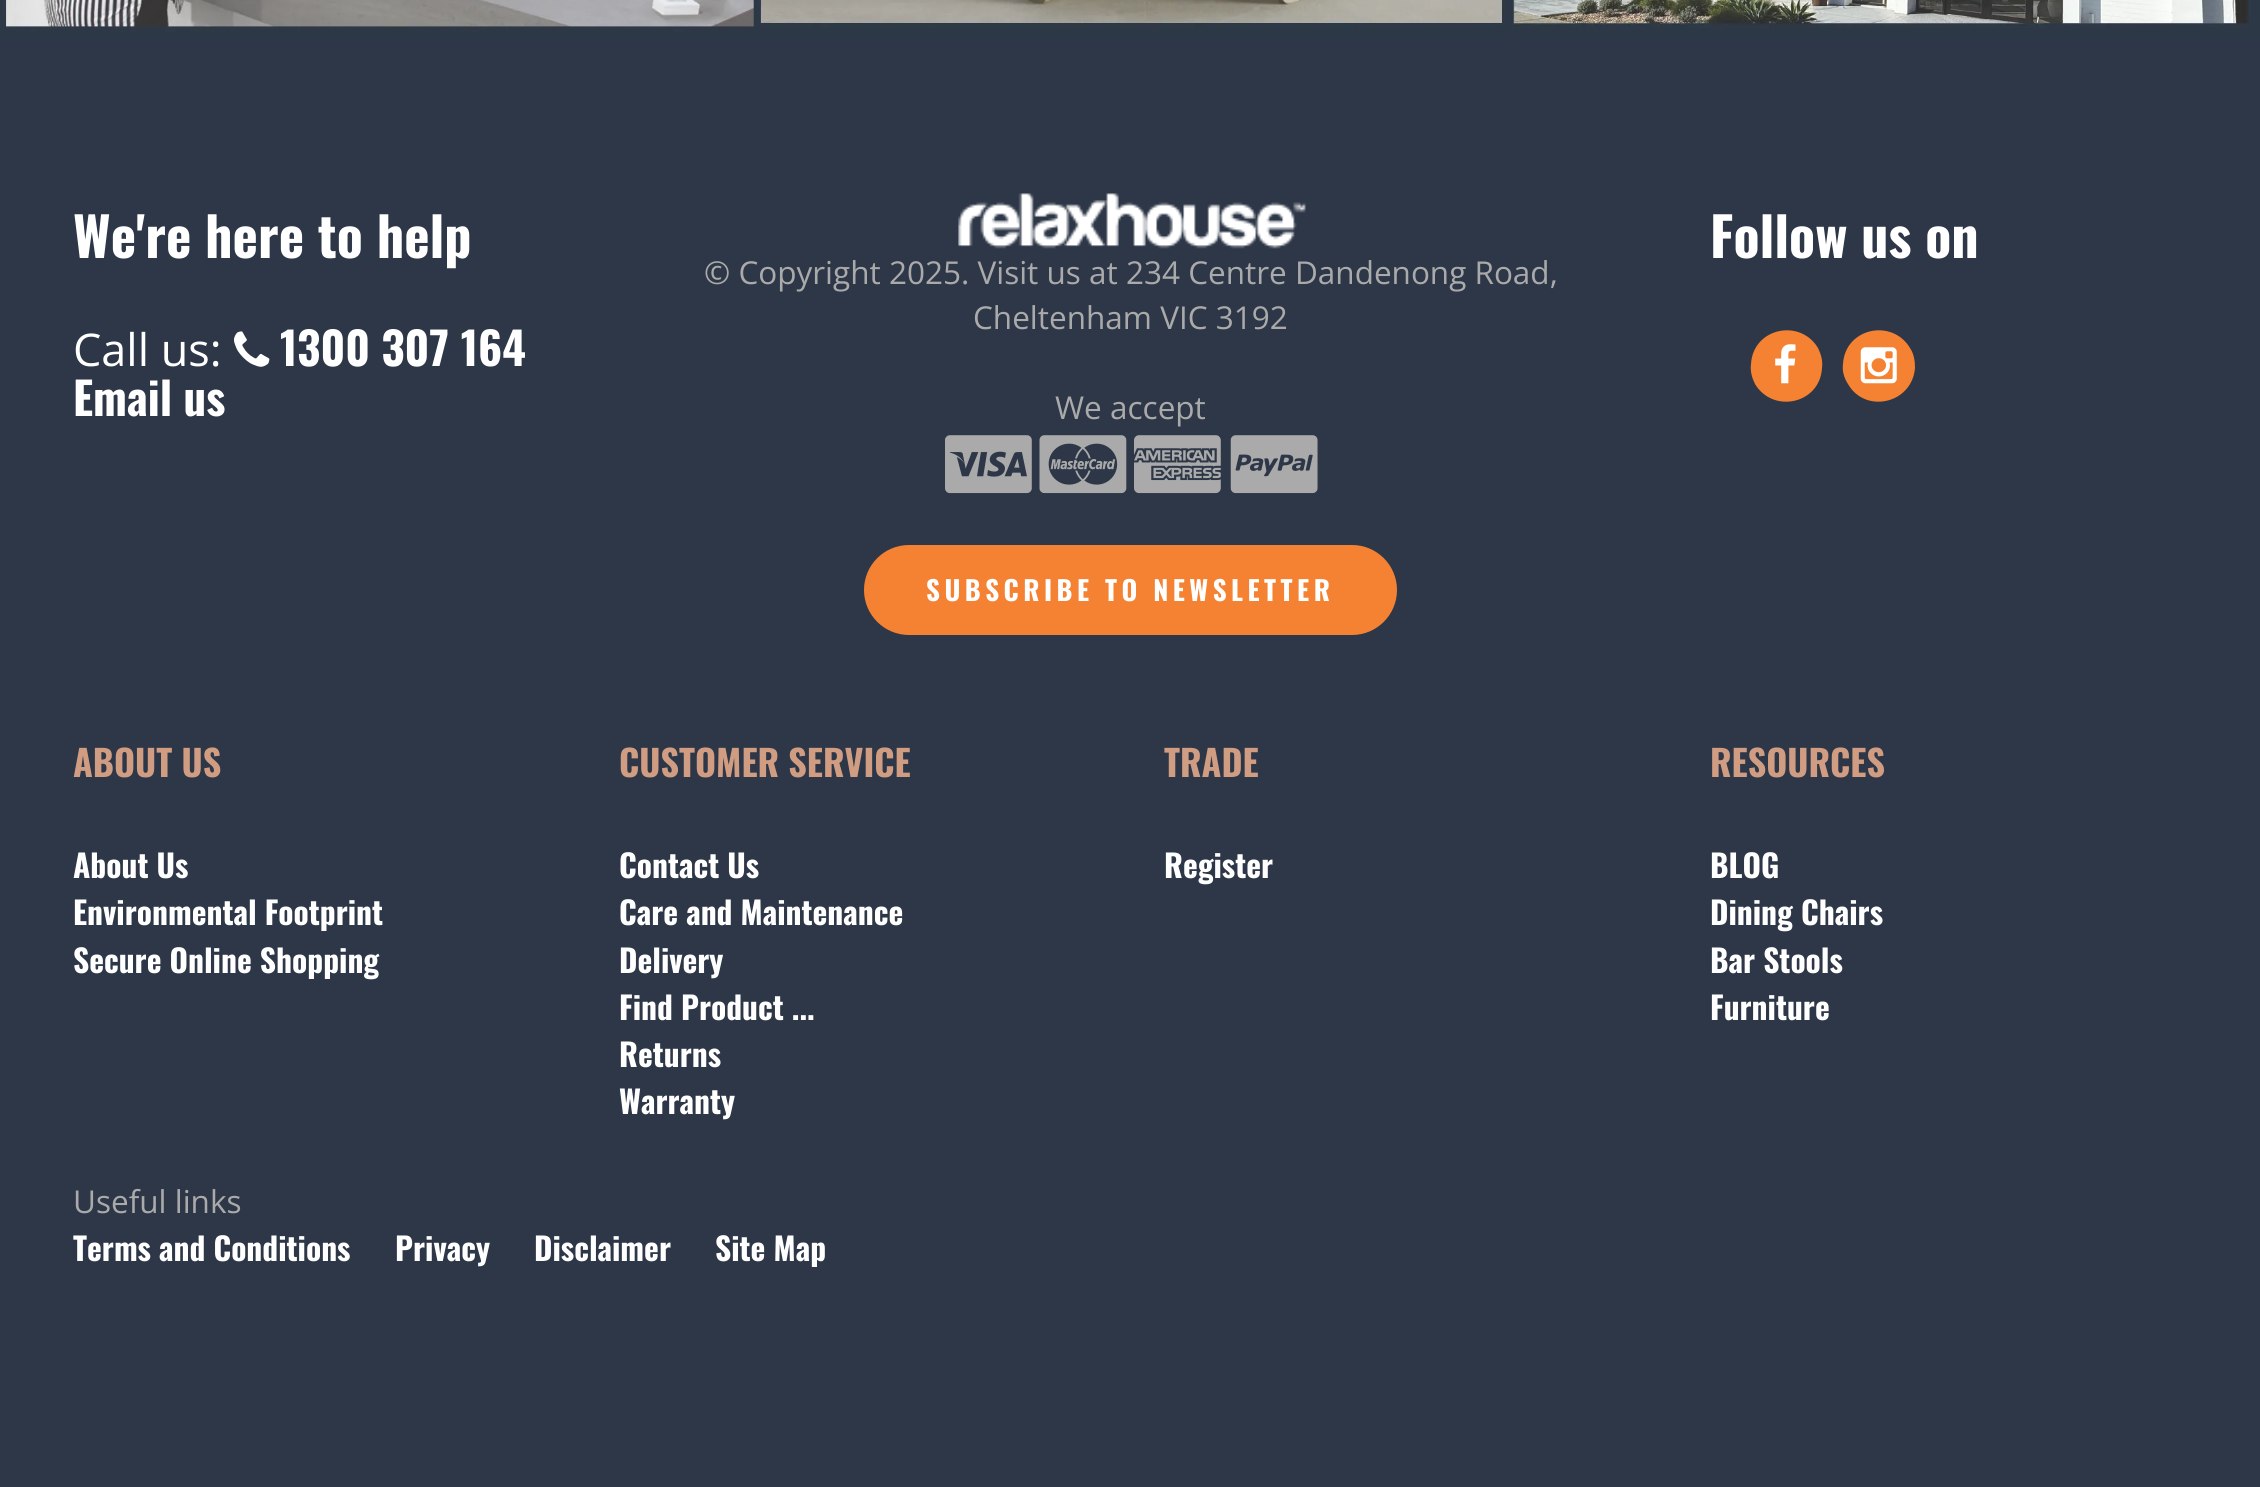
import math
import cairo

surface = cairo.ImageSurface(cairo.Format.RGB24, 2260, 1487)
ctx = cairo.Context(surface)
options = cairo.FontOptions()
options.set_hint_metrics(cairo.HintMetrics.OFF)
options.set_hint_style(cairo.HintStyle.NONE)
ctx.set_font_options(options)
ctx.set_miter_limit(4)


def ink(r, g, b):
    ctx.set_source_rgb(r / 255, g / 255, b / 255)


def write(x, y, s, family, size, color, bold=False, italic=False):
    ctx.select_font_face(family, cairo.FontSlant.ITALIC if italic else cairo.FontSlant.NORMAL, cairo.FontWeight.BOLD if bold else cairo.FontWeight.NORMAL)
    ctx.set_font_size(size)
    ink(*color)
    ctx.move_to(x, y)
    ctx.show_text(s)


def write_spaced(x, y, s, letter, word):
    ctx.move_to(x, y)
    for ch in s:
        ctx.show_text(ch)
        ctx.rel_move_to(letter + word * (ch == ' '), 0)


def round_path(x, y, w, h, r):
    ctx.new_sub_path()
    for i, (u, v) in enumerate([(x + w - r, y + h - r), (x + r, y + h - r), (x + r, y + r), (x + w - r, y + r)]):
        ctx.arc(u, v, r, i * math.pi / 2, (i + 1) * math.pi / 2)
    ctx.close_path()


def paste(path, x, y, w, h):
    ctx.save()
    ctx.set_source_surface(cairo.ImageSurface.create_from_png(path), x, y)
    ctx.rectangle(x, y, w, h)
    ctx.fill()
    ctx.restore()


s1 = dict(family="Oswald", size=54, color=(255, 255, 255), bold=True)
s2 = dict(family="Open Sans", size=45, color=(255, 255, 255))
s3 = dict(family="Oswald", size=45, color=(255, 255, 255), bold=True)
s4 = dict(family="Open Sans", size=31.5, color=(170, 170, 170))
s5 = dict(family="Oswald", size=36, color=(209, 157, 130), bold=True)
s6 = dict(family="Oswald", size=31.5, color=(255, 255, 255), bold=True)

ink(45, 55, 71)
ctx.paint()
paste("pic1.png", 0, 0, 754, 36)
paste("pic2.png", 753, 0, 754, 36)
paste("pic3.png", 1508, 0, 752, 36)
write(73, 258, "We're here to help", **s1)
write(73, 366, "Call us:", **s2)
paste("pic4.png", 234, 331, 36, 36)
write(280, 366, "1300 307 164", **s3)
write(73, 416, "Email us", **s3)
write(1710, 258, "Follow us on", **s1)
ink(245, 130, 50)
ctx.new_path()
ctx.move_to(1818, 348)
ctx.curve_to(1821, 354, 1823, 361, 1822, 368)
ctx.curve_to(1820, 404, 1773, 414, 1755, 384)
ctx.curve_to(1752, 378, 1750, 371, 1751, 364)
ctx.curve_to(1753, 328, 1800, 318, 1818, 348)
ctx.close_path()
ctx.fill()
paste("pic5.png", 1775, 344, 21, 40)
ctx.new_path()
ctx.move_to(1910, 348)
ctx.curve_to(1914, 354, 1915, 361, 1915, 368)
ctx.curve_to(1912, 404, 1865, 414, 1848, 384)
ctx.curve_to(1844, 378, 1842, 371, 1843, 364)
ctx.curve_to(1845, 328, 1892, 318, 1910, 348)
ctx.close_path()
ctx.fill()
paste("pic6.png", 1860, 347, 37, 37)
paste("pic7.png", 958, 193, 348, 56)
write(704, 284, "© Copyright 2025. Visit us at 234 Centre Dandenong Road,", **s4)
write(973, 329, "Cheltenham VIC 3192", **s4)
write(1055, 419, "We accept", **s4)
paste("pic8.png", 945, 435, 87, 59)
paste("pic9.png", 1039, 435, 88, 59)
paste("pic10.png", 1134, 435, 87, 59)
paste("pic11.png", 1230, 435, 88, 59)
ink(245, 130, 50)
round_path(866.5, 547.5, 528, 85, 42.5)
ctx.fill_preserve()
ctx.set_line_width(5)
ctx.stroke()
ctx.select_font_face("Oswald", cairo.FontSlant.NORMAL, cairo.FontWeight.BOLD)
ctx.set_font_size(27)
ink(255, 255, 255)
write_spaced(926, 601, "SUBSCRIBE TO NEWSLETTER", 4.5, 0)
write(73, 777, "ABOUT US", **s5)
write(73, 878, "About Us", **s6)
write(73, 925, "Environmental Footprint", **s6)
write(73, 973, "Secure Online Shopping", **s6)
write(619, 777, "CUSTOMER SERVICE", **s5)
write(619, 878, "Contact Us", **s6)
write(619, 925, "Care and Maintenance", **s6)
write(619, 973, "Delivery", **s6)
write(619, 1020, "Find Product ...", **s6)
write(619, 1067, "Returns", **s6)
write(619, 1114, "Warranty", **s6)
write(1164, 777, "TRADE", **s5)
write(1164, 878, "Register", **s6)
write(1710, 777, "RESOURCES", **s5)
write(1710, 878, "BLOG", **s6)
write(1710, 925, "Dining Chairs", **s6)
write(1710, 973, "Bar Stools", **s6)
write(1710, 1020, "Furniture", **s6)
write(73, 1213, "Useful links", **s4)
write(73, 1261, "Terms and Conditions", **s6)
write(395, 1261, "Privacy", **s6)
write(534, 1261, "Disclaimer", **s6)
write(715, 1261, "Site Map", **s6)
surface.write_to_png("screenshot.png")
